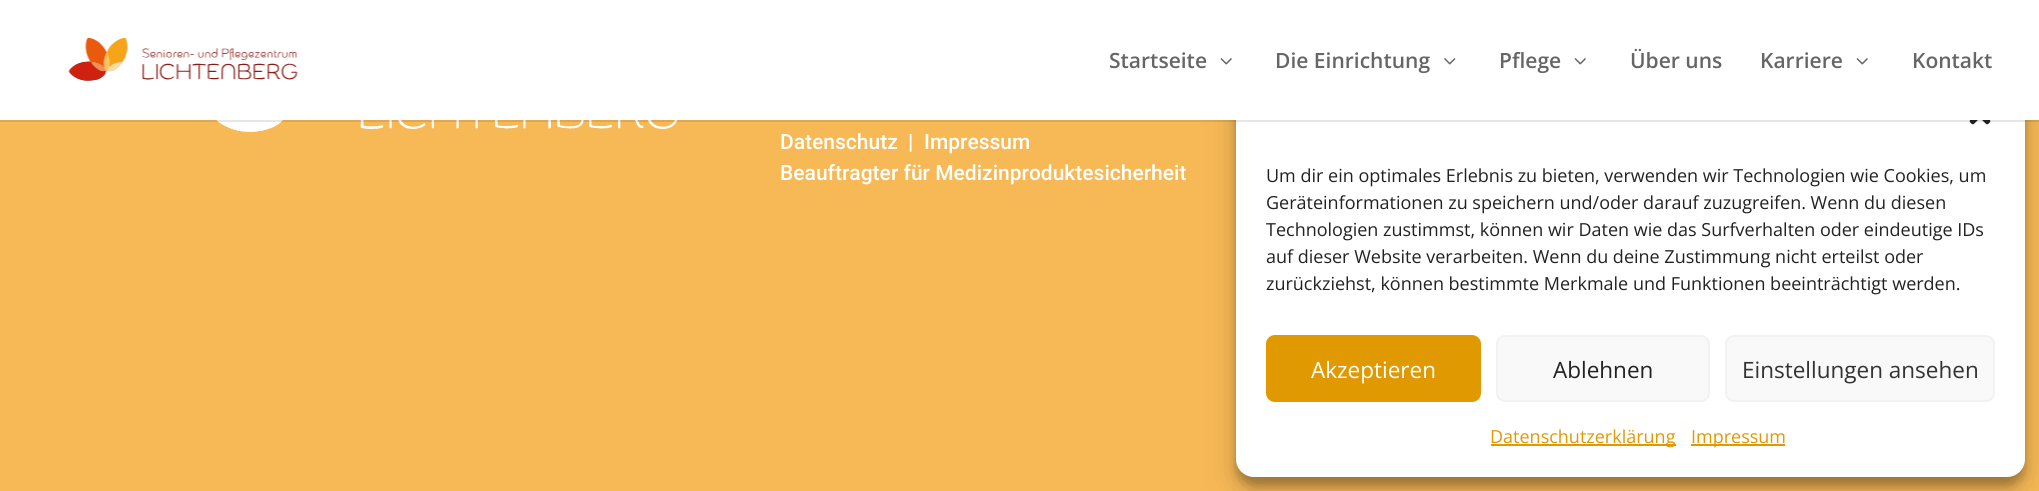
import math
import cairo

surface = cairo.ImageSurface(cairo.Format.RGB24, 2039, 491)
ctx = cairo.Context(surface)
options = cairo.FontOptions()
options.set_hint_metrics(cairo.HintMetrics.OFF)
options.set_hint_style(cairo.HintStyle.NONE)
ctx.set_font_options(options)
ctx.set_miter_limit(4)


def ink(r, g, b):
    ctx.set_source_rgb(r / 255, g / 255, b / 255)


def write(x, y, s, family, size, color, bold=False, italic=False):
    ctx.select_font_face(family, cairo.FontSlant.ITALIC if italic else cairo.FontSlant.NORMAL, cairo.FontWeight.BOLD if bold else cairo.FontWeight.NORMAL)
    ctx.set_font_size(size)
    ink(*color)
    ctx.move_to(x, y)
    ctx.show_text(s)


def block(x, y, w, h, *color):
    ink(*color)
    ctx.rectangle(x, y, w, h)
    ctx.fill()


def round_path(x, y, w, h, r):
    ctx.new_sub_path()
    for i, (u, v) in enumerate([(x + w - r, y + h - r), (x + r, y + h - r), (x + r, y + r), (x + w - r, y + r)]):
        ctx.arc(u, v, r, i * math.pi / 2, (i + 1) * math.pi / 2)
    ctx.close_path()


def blur_box(x, y, w, h, r, blur, alpha):
    ctx.push_group_with_content(cairo.Content.ALPHA)
    ctx.set_operator(cairo.Operator.SOURCE)
    for i in range(15, -16, -2):
        e = blur * i / 6
        if min(w, h) + 2 * e > 0:
            ctx.set_source_rgba(0, 0, 0, alpha * math.erfc((i - 1) / 8.5) / 2)
            round_path(x - e, y - e, w + 2 * e, h + 2 * e, max(0, min(r + e + blur * .6, min(w, h) / 2 + e)))
            ctx.fill()
    ctx.mask(ctx.pop_group())


def paste(path, x, y, w, h):
    ctx.save()
    ctx.set_source_surface(cairo.ImageSurface.create_from_png(path), x, y)
    ctx.rectangle(x, y, w, h)
    ctx.fill()
    ctx.restore()


s1 = dict(family="Open Sans SemiBold", size=21, color=(102, 102, 102))
s2 = dict(family="Roboto Medium", size=21, color=(255, 255, 255))
s3 = dict(family="Open Sans", size=18, color=(34, 34, 34))
s4 = dict(family="Open Sans", size=22.5, color=(255, 255, 255))
s5 = dict(family="Open Sans", size=22.5, color=(34, 34, 34))
s6 = dict(family="Open Sans", size=22.5, color=(51, 51, 51))
s7 = dict(family="Open Sans", size=18, color=(224, 153, 0))

ink(247, 185, 86)
ctx.paint()
paste("pic4.png", 216, 120, 462, 12)
ink(0, 0, 0)
blur_box(1236, 83, 789, 403, 18, 4.5, 0.23)
blur_box(1236, 89, 789, 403, 18, 15, 0.19)
ink(255, 255, 255)
round_path(1236, 74, 789, 403, 18)
ctx.fill()
paste("pic5.png", 1969, 120, 22, 5)
ctx.set_source_rgba(0, 0, 0, 0.1)
ctx.rectangle(0, 120, 2039, 2)
ctx.fill()
block(0, 0, 2039, 120, 255, 255, 255)
paste("pic1.png", 68, 37, 230, 44)
write(1109, 68, "Startseite", **s1)
paste("pic2.png", 1220, 58, 12, 7)
write(1275, 68, "Die Einrichtung", **s1)
paste("pic3.png", 1444, 58, 12, 7)
write(1499, 68, "Pflege", **s1)
paste("pic2.png", 1574, 58, 12, 7)
write(1630, 68, "Über uns", **s1)
write(1760, 68, "Karriere", **s1)
paste("pic2.png", 1856, 58, 12, 7)
write(1912, 68, "Kontakt", **s1)
write(780, 149, "Datenschutz", **s2)
write(908, 149, "|", **s2)
write(924, 149, "Impressum", **s2)
write(780, 180, "Beauftragter für Medizinproduktesicherheit", **s2)
write(1266, 182, "Um dir ein optimales Erlebnis zu bieten, verwenden wir Technologien wie Cookies, um", **s3)
write(1266, 209, "Geräteinformationen zu speichern und/oder darauf zuzugreifen. Wenn du diesen", **s3)
write(1266, 236, "Technologien zustimmst, können wir Daten wie das Surfverhalten oder eindeutige IDs", **s3)
write(1266, 263, "auf dieser Website verarbeiten. Wenn du deine Zustimmung nicht erteilst oder", **s3)
write(1266, 290, "zurückziehst, können bestimmte Merkmale und Funktionen beeinträchtigt werden.", **s3)
ink(224, 153, 0)
round_path(1267, 336, 213, 65, 8)
ctx.fill_preserve()
ctx.stroke()
write(1311, 378, "Akzeptieren", **s4)
ink(249, 249, 249)
round_path(1497, 336, 212, 65, 8)
ctx.fill_preserve()
ink(242, 242, 242)
ctx.stroke()
write(1553, 378, "Ablehnen", **s5)
ink(249, 249, 249)
round_path(1726, 336, 268, 65, 8)
ctx.fill_preserve()
ink(242, 242, 242)
ctx.stroke()
write(1742, 378, "Einstellungen ansehen", **s6)
block(1491, 444, 185, 2, 224, 153, 0)
write(1490, 443, "Datenschutzerklärung", **s7)
block(1691, 444, 94, 2, 224, 153, 0)
write(1691, 443, "Impressum", **s7)
surface.write_to_png("screenshot.png")
